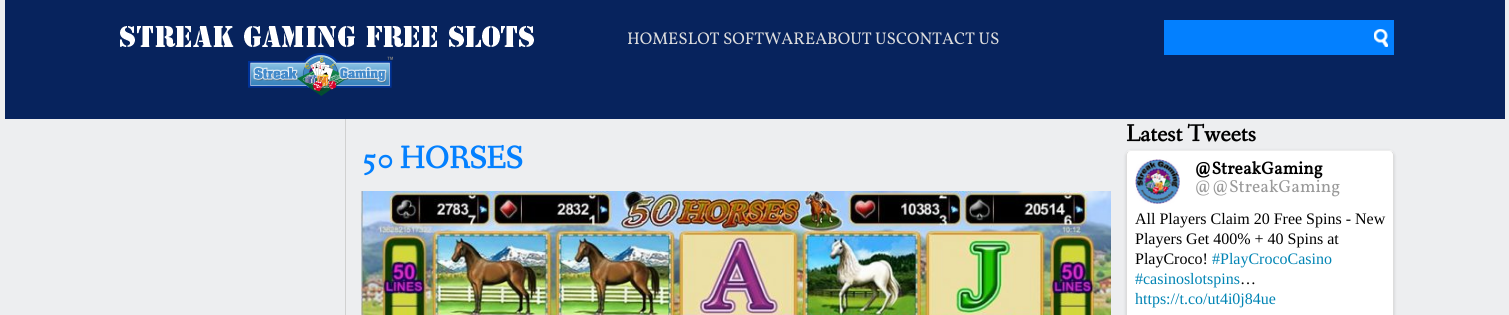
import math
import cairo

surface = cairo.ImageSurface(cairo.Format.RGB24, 1509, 315)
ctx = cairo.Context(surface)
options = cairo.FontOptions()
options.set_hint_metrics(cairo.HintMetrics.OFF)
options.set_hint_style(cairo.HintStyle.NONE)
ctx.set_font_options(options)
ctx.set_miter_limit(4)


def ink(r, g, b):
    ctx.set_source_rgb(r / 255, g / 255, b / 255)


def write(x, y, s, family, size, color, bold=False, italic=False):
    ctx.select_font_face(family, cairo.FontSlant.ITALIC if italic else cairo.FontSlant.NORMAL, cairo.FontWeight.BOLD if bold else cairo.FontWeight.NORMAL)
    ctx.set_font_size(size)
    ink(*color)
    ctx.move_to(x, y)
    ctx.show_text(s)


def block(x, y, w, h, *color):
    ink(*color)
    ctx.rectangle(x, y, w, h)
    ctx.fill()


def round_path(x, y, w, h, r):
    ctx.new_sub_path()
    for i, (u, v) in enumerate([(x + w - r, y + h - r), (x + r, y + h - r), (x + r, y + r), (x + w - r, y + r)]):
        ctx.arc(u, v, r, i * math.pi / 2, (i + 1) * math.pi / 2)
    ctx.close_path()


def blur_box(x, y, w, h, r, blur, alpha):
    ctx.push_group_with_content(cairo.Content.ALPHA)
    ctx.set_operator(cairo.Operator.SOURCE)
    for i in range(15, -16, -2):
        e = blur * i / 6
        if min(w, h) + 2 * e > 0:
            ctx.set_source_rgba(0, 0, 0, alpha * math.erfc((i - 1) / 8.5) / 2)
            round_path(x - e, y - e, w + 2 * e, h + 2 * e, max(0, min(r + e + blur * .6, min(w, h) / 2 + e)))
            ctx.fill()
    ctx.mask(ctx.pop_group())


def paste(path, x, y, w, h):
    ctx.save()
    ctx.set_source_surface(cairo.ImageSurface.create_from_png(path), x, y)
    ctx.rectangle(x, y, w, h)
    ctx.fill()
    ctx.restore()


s1 = dict(family="Vollkorn", size=17, color=(221, 221, 221))
s2 = dict(family="Fanwood Text", size=32, color=(3, 128, 255), bold=True)
s3 = dict(family="Fanwood Text", size=24, color=(0, 0, 0), bold=True)
s4 = dict(family="Vollkorn", size=17.5, color=(0, 0, 0), bold=True)
s5 = dict(family="Vollkorn", size=17.5, color=(153, 153, 153))
s6 = dict(family="Liberation Serif", size=16, color=(0, 0, 0))
s7 = dict(family="Liberation Serif", size=16, color=(0, 132, 180))

ink(237, 238, 240)
ctx.paint()
block(5, 0, 1500, 119, 7, 35, 93)
paste("pic1.png", 120, 26, 414, 70)
write(627, 44, "HOMESLOT SOFTWAREABOUT USCONTACT US", **s1)
block(1164, 20, 230, 35, 3, 128, 255)
paste("pic2.png", 1374, 29, 14, 18)
block(345, 119, 1, 196, 209, 209, 209)
write(361, 168, "50 HORSES", **s2)
paste("pic3.png", 361, 191, 750, 124)
write(1126, 141, "Latest Tweets", **s3)
ink(0, 0, 0)
blur_box(1126, 151, 268, 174, 5, 1.5, 0.15)
ink(255, 255, 255)
round_path(1126, 150, 268, 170, 5)
ctx.fill()
ctx.new_path()
ctx.move_to(1128, 152)
ctx.curve_to(1128.5, 151, 1130, 150.5, 1131, 150.5)
ctx.line_to(1389, 150.5)
ctx.curve_to(1390, 150.5, 1391.5, 151, 1392, 152)
ink(238, 238, 238)
ctx.set_line_width(1)
ctx.stroke()
ctx.new_path()
ctx.move_to(1392, 152)
ctx.curve_to(1393, 152.5, 1393.5, 154, 1393.5, 155)
ctx.line_to(1393.5, 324)
ctx.curve_to(1393.5, 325, 1393, 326.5, 1392, 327)
ink(221, 221, 221)
ctx.stroke()
ctx.new_path()
ctx.move_to(1128, 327)
ctx.curve_to(1127, 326.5, 1126.5, 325, 1126.5, 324)
ctx.line_to(1126.5, 155)
ctx.curve_to(1126.5, 154, 1127, 152.5, 1128, 152)
ctx.stroke()
paste("pic4.png", 1135, 159, 45, 45)
write(1194, 174, "@StreakGaming", **s4)
write(1194, 192, "@@StreakGaming", **s5)
write(1135, 224, "All Players Claim 20 Free Spins - New", **s6)
write(1135, 244, "Players Get 400% + 40 Spins at", **s6)
write(1135, 264, "PlayCroco!", **s6)
write(1212, 264, "#PlayCrocoCasino", **s7)
write(1135, 284, "#casinoslotspins", **s7)
write(1240, 284, "…", **s6)
write(1135, 304, "https://t.co/ut4i0j84ue", **s7)
surface.write_to_png("screenshot.png")
